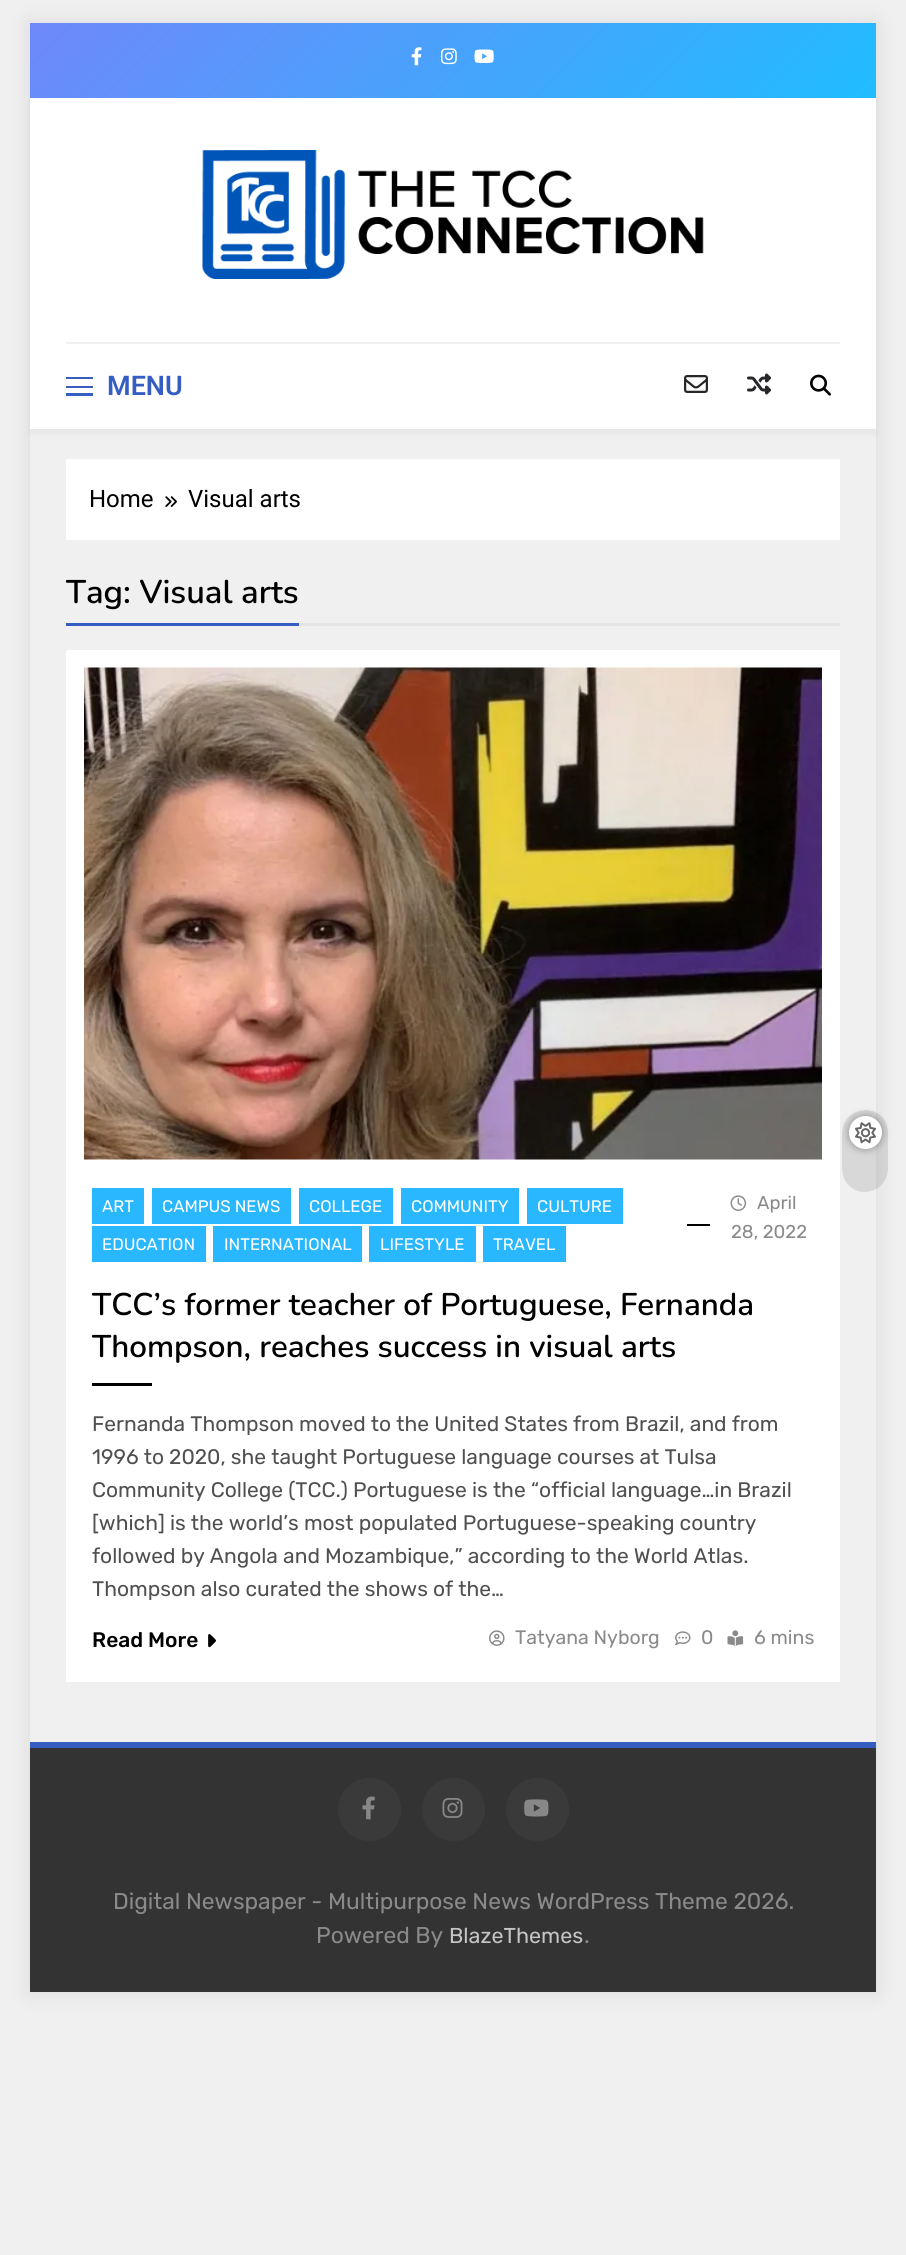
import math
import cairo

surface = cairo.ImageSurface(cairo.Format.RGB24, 906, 2255)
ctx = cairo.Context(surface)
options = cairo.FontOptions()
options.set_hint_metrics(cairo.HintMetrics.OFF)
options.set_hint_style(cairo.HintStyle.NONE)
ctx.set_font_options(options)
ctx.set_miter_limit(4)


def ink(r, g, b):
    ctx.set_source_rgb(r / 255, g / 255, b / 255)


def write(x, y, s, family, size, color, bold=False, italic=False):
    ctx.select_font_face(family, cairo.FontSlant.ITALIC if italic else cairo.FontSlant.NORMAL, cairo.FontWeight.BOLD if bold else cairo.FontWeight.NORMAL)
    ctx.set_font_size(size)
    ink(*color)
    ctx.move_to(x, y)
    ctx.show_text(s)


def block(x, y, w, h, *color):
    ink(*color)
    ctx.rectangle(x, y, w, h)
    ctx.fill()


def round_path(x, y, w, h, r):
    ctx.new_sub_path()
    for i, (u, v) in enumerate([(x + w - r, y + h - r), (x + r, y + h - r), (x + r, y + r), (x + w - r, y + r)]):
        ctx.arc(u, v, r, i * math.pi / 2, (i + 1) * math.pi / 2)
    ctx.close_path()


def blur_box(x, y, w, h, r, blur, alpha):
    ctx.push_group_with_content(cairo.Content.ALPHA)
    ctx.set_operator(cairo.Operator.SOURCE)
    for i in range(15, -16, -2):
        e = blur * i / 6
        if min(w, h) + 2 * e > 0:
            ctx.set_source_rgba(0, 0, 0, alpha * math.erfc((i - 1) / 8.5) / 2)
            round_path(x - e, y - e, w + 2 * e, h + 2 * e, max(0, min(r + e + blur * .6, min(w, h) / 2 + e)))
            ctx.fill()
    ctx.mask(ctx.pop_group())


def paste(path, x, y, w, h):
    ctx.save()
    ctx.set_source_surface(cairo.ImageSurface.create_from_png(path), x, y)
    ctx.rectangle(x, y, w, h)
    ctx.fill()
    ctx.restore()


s1 = dict(family="Roboto SemiBold", size=27, color=(53, 93, 194))
s2 = dict(family="Roboto", size=24, color=(0, 0, 0))
s3 = dict(family="Nunito SemiBold", size=32.75, color=(0, 0, 0))
s4 = dict(family="Rubik", size=16.75, color=(255, 255, 255))
s5 = dict(family="Rubik", size=18.5, color=(138, 138, 140))
s6 = dict(family="Nunito SemiBold", size=31.35, color=(0, 0, 0))
s7 = dict(family="Rubik", size=21, color=(80, 80, 80))
s8 = dict(family="Rubik Medium", size=21, color=(0, 0, 0))
s9 = dict(family="Rubik", size=19.5, color=(138, 138, 140))
s10 = dict(family="Rubik", size=22.8, color=(138, 138, 140))
s11 = dict(family="Rubik", size=21.5, color=(197, 197, 197))

ink(240, 240, 240)
ctx.paint()
ctx.save()
ctx.set_fill_rule(cairo.FillRule.EVEN_ODD)
ctx.new_path()
ctx.move_to(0, 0)
ctx.line_to(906, 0)
ctx.line_to(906, 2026)
ctx.line_to(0, 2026)
ctx.close_path()
ctx.move_to(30, 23)
ctx.line_to(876, 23)
ctx.line_to(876, 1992)
ctx.line_to(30, 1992)
ctx.close_path()
ctx.clip()
ink(0, 0, 0)
blur_box(30, 23, 846, 1969, 0, 11, 0.1)
ctx.restore()
gradient = cairo.LinearGradient(223, -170, 683, 290)
gradient.add_color_stop_rgba(0, 0.435, 0.533, 0.98, 1)
gradient.add_color_stop_rgba(1, 0.125, 0.741, 1, 1)
ctx.set_source(gradient)
ctx.rectangle(30, 23, 846, 75)
ctx.fill()
paste("pic1.png", 411, 47, 11, 19)
paste("pic2.png", 441, 48, 16, 17)
paste("pic3.png", 474, 49, 20, 14)
ink(0, 0, 0)
blur_box(30, 102, 846, 332, 0, 3, 0.05)
block(30, 98, 846, 331, 255, 255, 255)
paste("pic4.png", 202, 150, 502, 129)
block(66, 342, 774, 2, 240, 240, 240)
block(66, 377, 27, 2, 53, 93, 194)
block(66, 386, 27, 2, 53, 93, 194)
block(66, 393, 27, 3, 53, 93, 194)
write(107, 395, "MENU", **s1)
paste("pic5.png", 684, 375, 24, 18)
paste("pic6.png", 747, 373, 24, 22)
paste("pic7.png", 810, 374, 21, 22)
ctx.set_source_rgba(0, 0, 0, 0.1)
ctx.new_path()
ctx.move_to(888, 1133)
ctx.line_to(888, 1169)
ctx.curve_to(887, 1194, 854, 1201, 844, 1178)
ctx.curve_to(841, 1170, 842, 1159, 842, 1151)
ctx.line_to(842, 1133)
ctx.curve_to(844, 1102, 888, 1103, 888, 1133)
ctx.close_path()
ctx.fill()
block(66, 650, 774, 1032, 255, 255, 255)
ink(0, 0, 0)
blur_box(849, 1116, 33, 33, 16.5, 4, 0.35)
ink(255, 255, 255)
ctx.arc(865.5, 1132.5, 16.5, 0, 2 * math.pi)
ctx.fill()
paste("pic8.png", 855, 1122, 21, 22)
block(66, 459, 774, 81, 255, 255, 255)
write(89, 507, "Home", **s2)
paste("pic9.png", 165, 496, 12, 11)
write(188, 507, "Visual arts", **s2)
block(299, 623, 541, 3, 229, 229, 229)
block(66, 623, 233, 3, 53, 93, 194)
write(66, 603, "Tag: Visual arts", **s3)
paste("pic10.png", 84, 667, 738, 493)
block(92, 1188, 52, 36, 41, 184, 255)
write(102, 1212, "ART", **s4)
block(152, 1188, 139, 36, 41, 184, 255)
write(162, 1212, "CAMPUS NEWS", **s4)
block(299, 1188, 94, 36, 41, 184, 255)
write(309, 1212, "COLLEGE", **s4)
block(401, 1188, 118, 36, 41, 184, 255)
write(411, 1212, "COMMUNITY", **s4)
block(527, 1188, 96, 36, 41, 184, 255)
write(537, 1212, "CULTURE", **s4)
block(92, 1226, 114, 36, 41, 184, 255)
write(102, 1250, "EDUCATION", **s4)
block(213, 1226, 149, 36, 41, 184, 255)
write(224, 1250, "INTERNATIONAL", **s4)
block(369, 1226, 107, 36, 41, 184, 255)
write(380, 1250, "LIFESTYLE", **s4)
block(483, 1226, 83, 36, 41, 184, 255)
write(493, 1250, "TRAVEL", **s4)
paste("pic11.png", 730, 1195, 17, 16)
write(757, 1209, "April", **s5)
block(687, 1224, 23, 2, 0, 0, 0)
write(731, 1238, "28, 2022", **s5)
write(92, 1315, "TCC’s former teacher of Portuguese, Fernanda", **s6)
write(92, 1357, "Thompson, reaches success in visual arts", **s6)
block(92, 1383, 60, 3, 0, 0, 0)
write(92, 1431, "Fernanda Thompson moved to the United States from Brazil, and from", **s7)
write(92, 1464, "1996 to 2020, she taught Portuguese language courses at Tulsa", **s7)
write(92, 1497, "Community College (TCC.) Portuguese is the “official language…in Brazil", **s7)
write(92, 1530, "[which] is the world’s most populated Portuguese-speaking country", **s7)
write(92, 1563, "followed by Angola and Mozambique,” according to the World Atlas.", **s7)
write(92, 1596, "Thompson also curated the shows of the…", **s7)
write(92, 1647, "Read More", **s8)
paste("pic12.png", 208, 1634, 8, 14)
paste("pic13.png", 489, 1630, 16, 16)
write(515, 1644, "Tatyana Nyborg", **s9)
paste("pic14.png", 675, 1631, 16, 14)
write(701, 1644, "0", **s9)
paste("pic15.png", 727, 1630, 17, 16)
write(754, 1644, "6 mins", **s9)
block(30, 1742, 846, 6, 53, 93, 194)
block(30, 1748, 846, 244, 51, 51, 51)
ink(58, 58, 58)
ctx.new_path()
ctx.arc(369.5, 1809.5, 31.5, 0, 2 * math.pi)
ctx.fill()
paste("pic16.png", 362, 1796, 13, 24)
ctx.arc(453.5, 1809.5, 31.5, 0, 2 * math.pi)
ctx.fill()
paste("pic17.png", 442, 1798, 21, 20)
ctx.arc(537.5, 1809.5, 31.5, 0, 2 * math.pi)
ctx.fill()
paste("pic18.png", 524, 1799, 25, 18)
write(113, 1909, "Digital Newspaper - Multipurpose News WordPress Theme 2026.", **s10)
write(316, 1943, "Powered By", **s10)
write(449, 1943, "BlazeThemes", **s11)
write(584, 1943, ".", **s10)
surface.write_to_png("screenshot.png")
